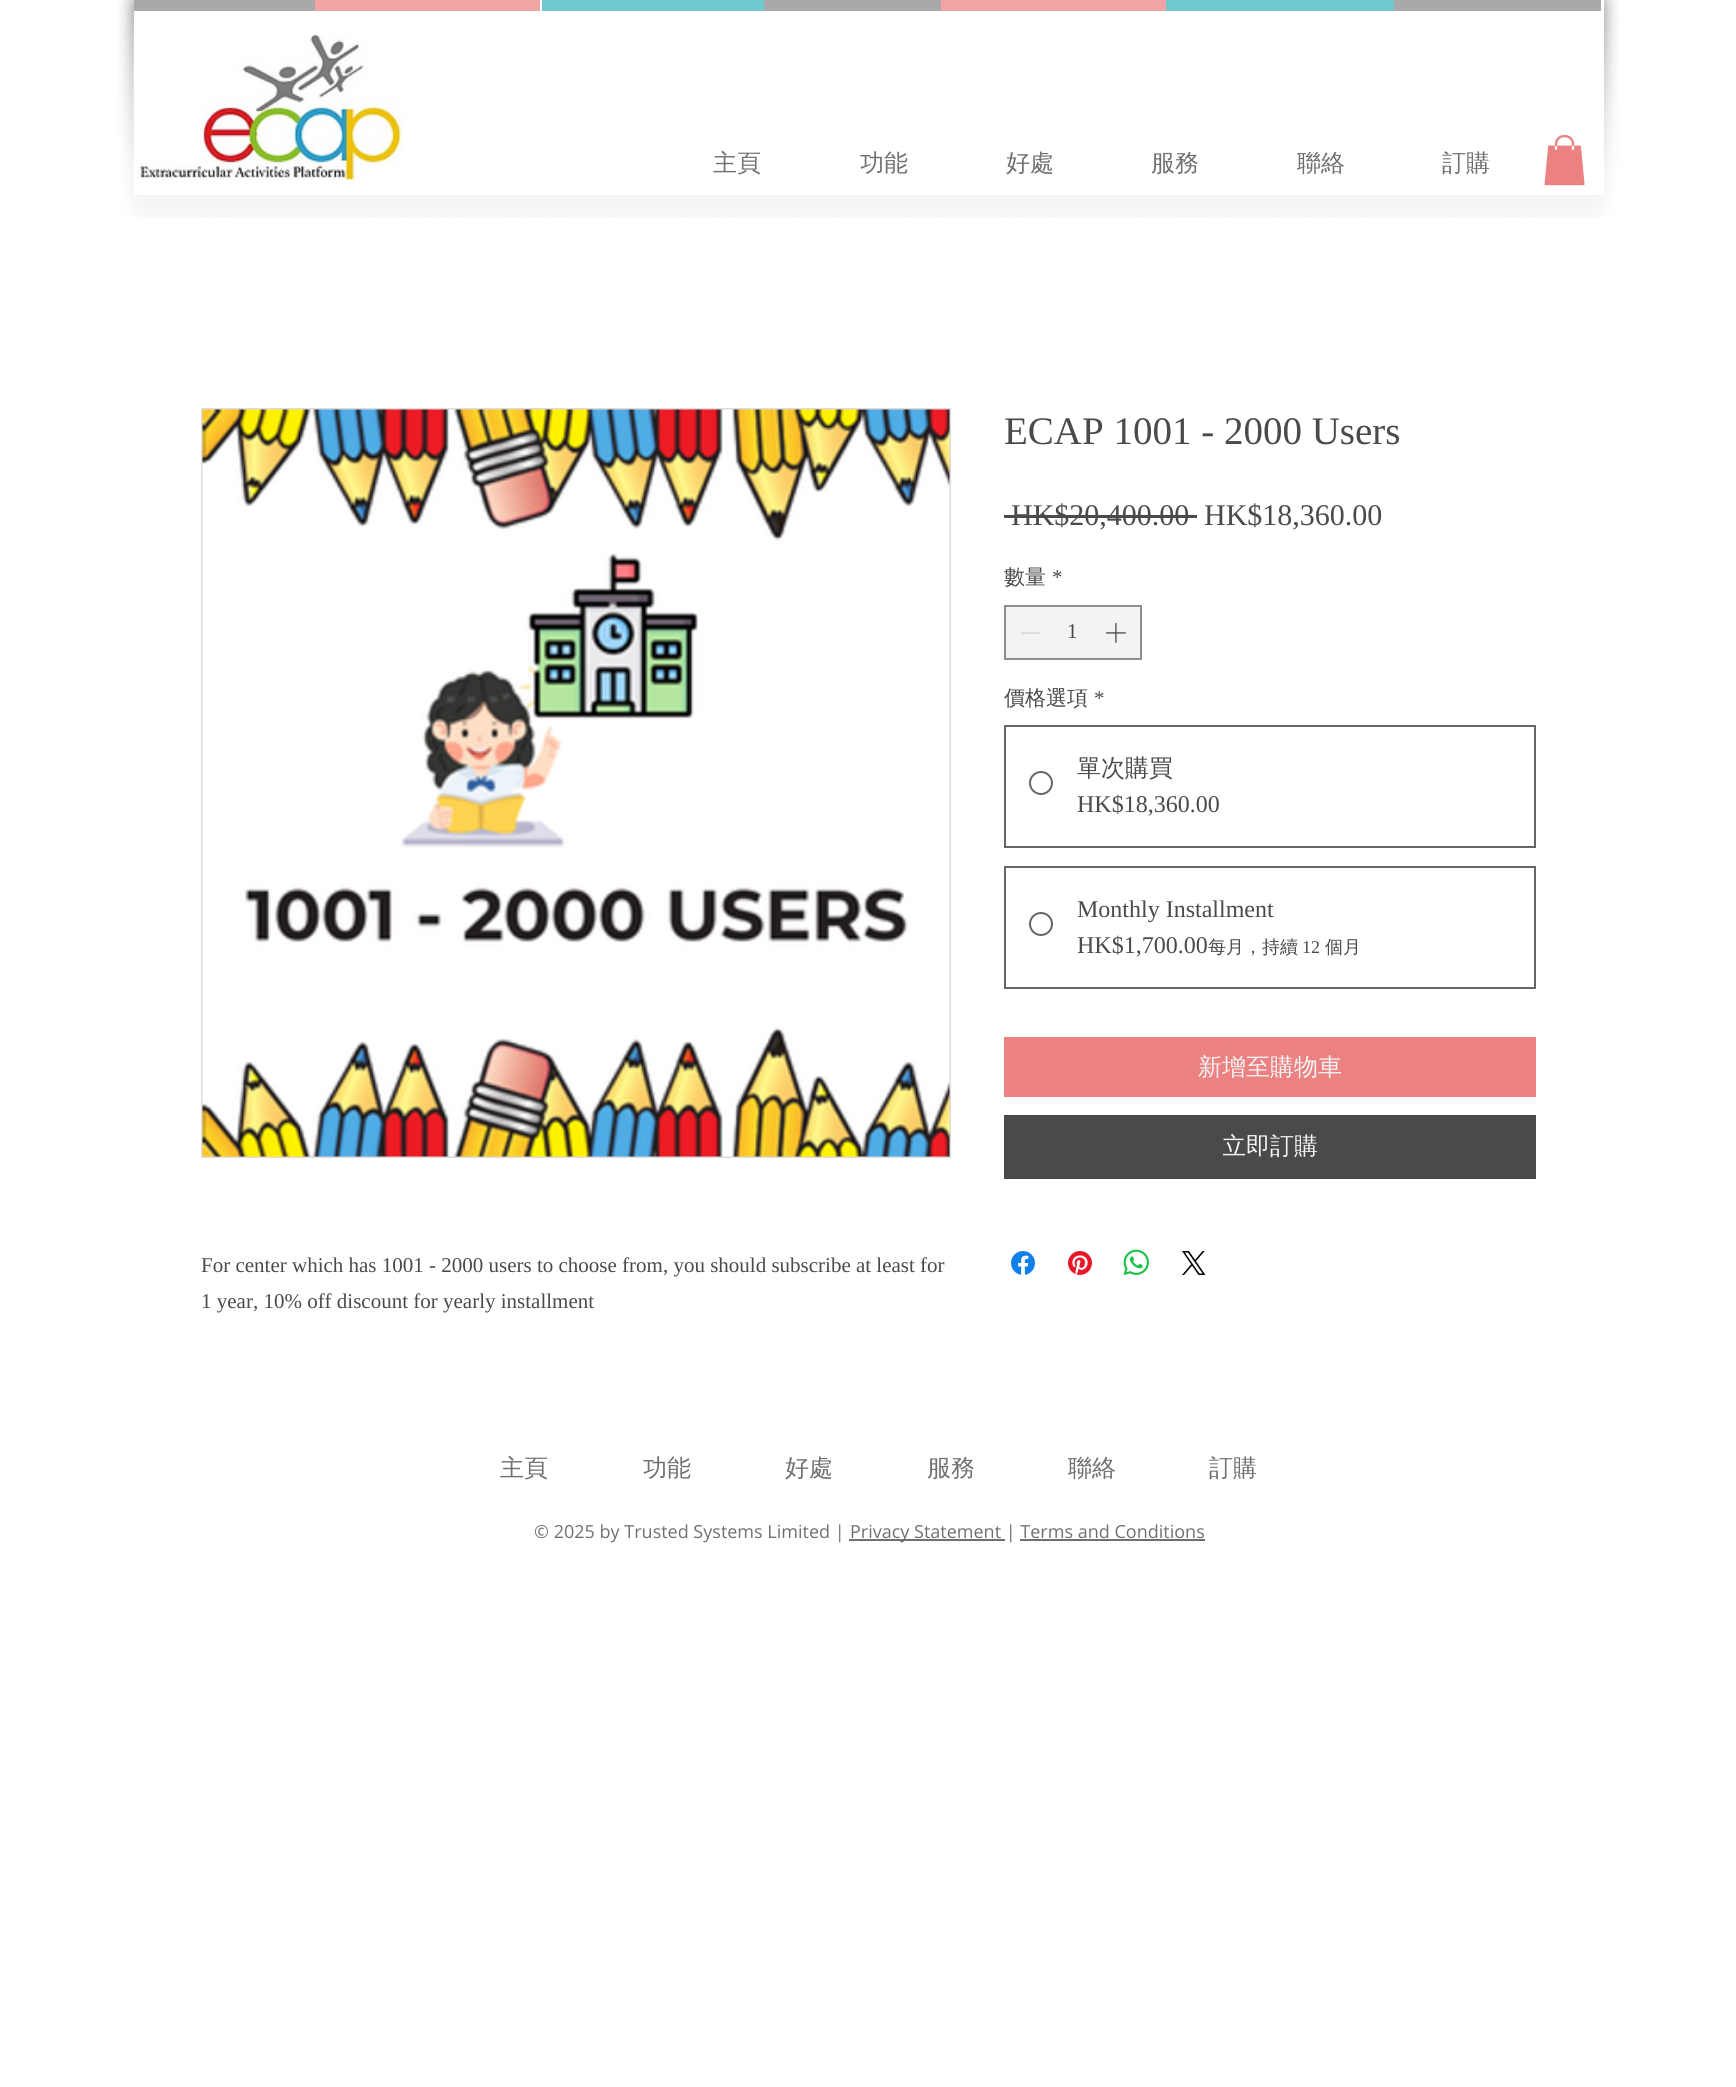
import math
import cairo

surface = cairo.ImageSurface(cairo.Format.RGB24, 1736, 2087)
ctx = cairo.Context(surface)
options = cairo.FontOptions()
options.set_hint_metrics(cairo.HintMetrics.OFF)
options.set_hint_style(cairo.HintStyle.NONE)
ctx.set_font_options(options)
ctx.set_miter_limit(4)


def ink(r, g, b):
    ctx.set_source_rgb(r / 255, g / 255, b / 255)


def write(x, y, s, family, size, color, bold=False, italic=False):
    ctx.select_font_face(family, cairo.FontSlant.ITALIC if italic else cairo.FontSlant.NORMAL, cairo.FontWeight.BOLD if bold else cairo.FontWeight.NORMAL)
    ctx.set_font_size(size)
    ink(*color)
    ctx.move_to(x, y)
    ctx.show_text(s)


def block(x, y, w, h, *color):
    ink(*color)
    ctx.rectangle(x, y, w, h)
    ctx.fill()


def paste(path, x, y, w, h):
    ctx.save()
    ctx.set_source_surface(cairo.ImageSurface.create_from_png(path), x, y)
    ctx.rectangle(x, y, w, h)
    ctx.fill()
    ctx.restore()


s1 = dict(family="WenQuanYi Zen Hei Medium", size=24, color=(113, 112, 112))
s2 = dict(family="Liberation Serif", size=39, color=(74, 74, 74))
s3 = dict(family="Liberation Serif", size=30, color=(74, 74, 74))
s4 = dict(family="WenQuanYi Zen Hei Medium", size=21, color=(74, 74, 74))
s5 = dict(family="Liberation Serif", size=21, color=(74, 74, 74))
s6 = dict(family="WenQuanYi Zen Hei Medium", size=24, color=(74, 74, 74))
s7 = dict(family="Liberation Serif", size=24, color=(74, 74, 74))
s8 = dict(family="WenQuanYi Zen Hei Medium", size=18, color=(74, 74, 74))
s9 = dict(family="Liberation Serif", size=18, color=(74, 74, 74))
s10 = dict(family="WenQuanYi Zen Hei Medium", size=24, color=(243, 243, 243))
s11 = dict(family="Open Sans", size=18, color=(113, 112, 112))

ink(255, 255, 255)
ctx.paint()
paste("pic1.png", 118, 0, 68, 217)
paste("pic3.png", 1551, 0, 68, 217)
block(134, 0, 1470, 195, 255, 255, 255)
paste("pic2.png", 186, 195, 1365, 22)
block(134, 0, 181, 11, 170, 168, 168)
block(315, 0, 225, 11, 241, 164, 164)
block(542, 0, 222, 11, 113, 201, 207)
block(764, 0, 177, 11, 170, 168, 168)
block(941, 0, 225, 11, 241, 164, 164)
block(1166, 0, 228, 11, 113, 201, 207)
block(1394, 0, 207, 11, 170, 168, 168)
paste("pic4.png", 133, 34, 270, 146)
write(713, 171, "主頁", **s1)
write(860, 171, "功能", **s1)
write(1006, 171, "好處", **s1)
write(1151, 171, "服務", **s1)
write(1297, 171, "聯絡", **s1)
write(1442, 171, "訂購", **s1)
paste("pic5.png", 1544, 135, 41, 51)
write(1004, 444, "ECAP 1001 - 2000 Users", **s2)
write(1011, 525, "HK$20,400.00", **s3)
block(1004, 515, 193, 3, 74, 74, 74)
write(1204, 525, "HK$18,360.00", **s3)
write(1004, 584, "數量", **s4)
write(1052, 584, "*", **s5)
ink(243, 243, 243)
ctx.rectangle(1005, 606, 136, 53)
ctx.fill_preserve()
ink(142, 142, 142)
ctx.stroke()
block(1021, 632, 19, 2, 221, 221, 221)
write(1067, 638, "1", **s5)
paste("pic6.png", 1106, 623, 20, 20)
write(1004, 705, "價格選項", **s4)
write(1094, 705, "*", **s5)
ctx.rectangle(1005, 726, 530, 121)
ink(102, 102, 102)
ctx.stroke()
ctx.arc(1041, 783, 11, 0, 2 * math.pi)
ctx.stroke()
write(1077, 776, "單次購買", **s6)
write(1077, 812, "HK$18,360.00", **s7)
ctx.rectangle(1005, 867, 530, 121)
ink(102, 102, 102)
ctx.stroke()
ctx.arc(1041, 924, 11, 0, 2 * math.pi)
ctx.stroke()
write(1077, 917, "Monthly Installment", **s7)
write(1077, 953, "HK$1,700.00", **s7)
write(1208, 953, "每月，持續", **s8)
write(1302, 953, "12", **s9)
write(1325, 953, "個月", **s8)
block(1004, 1037, 532, 60, 236, 129, 129)
write(1198, 1075, "新增至購物車", **s10)
block(1004, 1115, 532, 64, 74, 74, 74)
ctx.save()
ctx.rectangle(1223, 1130, 96, 34)
ctx.clip()
write(1222, 1154, "立即訂購", **s10)
ctx.restore()
paste("pic7.png", 1011, 1251, 24, 24)
paste("pic8.png", 1068, 1251, 24, 24)
paste("pic9.png", 1123, 1249, 26, 27)
paste("pic10.png", 1182, 1251, 24, 24)
ctx.rectangle(202, 409, 748, 748)
ink(224, 219, 219)
ctx.stroke()
paste("pic11.png", 202, 409, 748, 748)
write(201, 1272, "For center which has 1001 - 2000 users to choose from, you should subscribe at least for", **s5)
write(201, 1308, "1 year, 10% off discount for yearly installment", **s5)
write(500, 1476, "主頁", **s1)
write(643, 1476, "功能", **s1)
write(785, 1476, "好處", **s1)
write(927, 1476, "服務", **s1)
write(1068, 1476, "聯絡", **s1)
write(1209, 1476, "訂購", **s1)
write(534, 1538, "© 2025 by Trusted Systems Limited |", **s11)
block(849, 1539, 156, 2, 113, 112, 112)
write(850, 1538, "Privacy Statement | Terms and Conditions", **s11)
block(1020, 1539, 185, 2, 113, 112, 112)
surface.write_to_png("screenshot.png")
